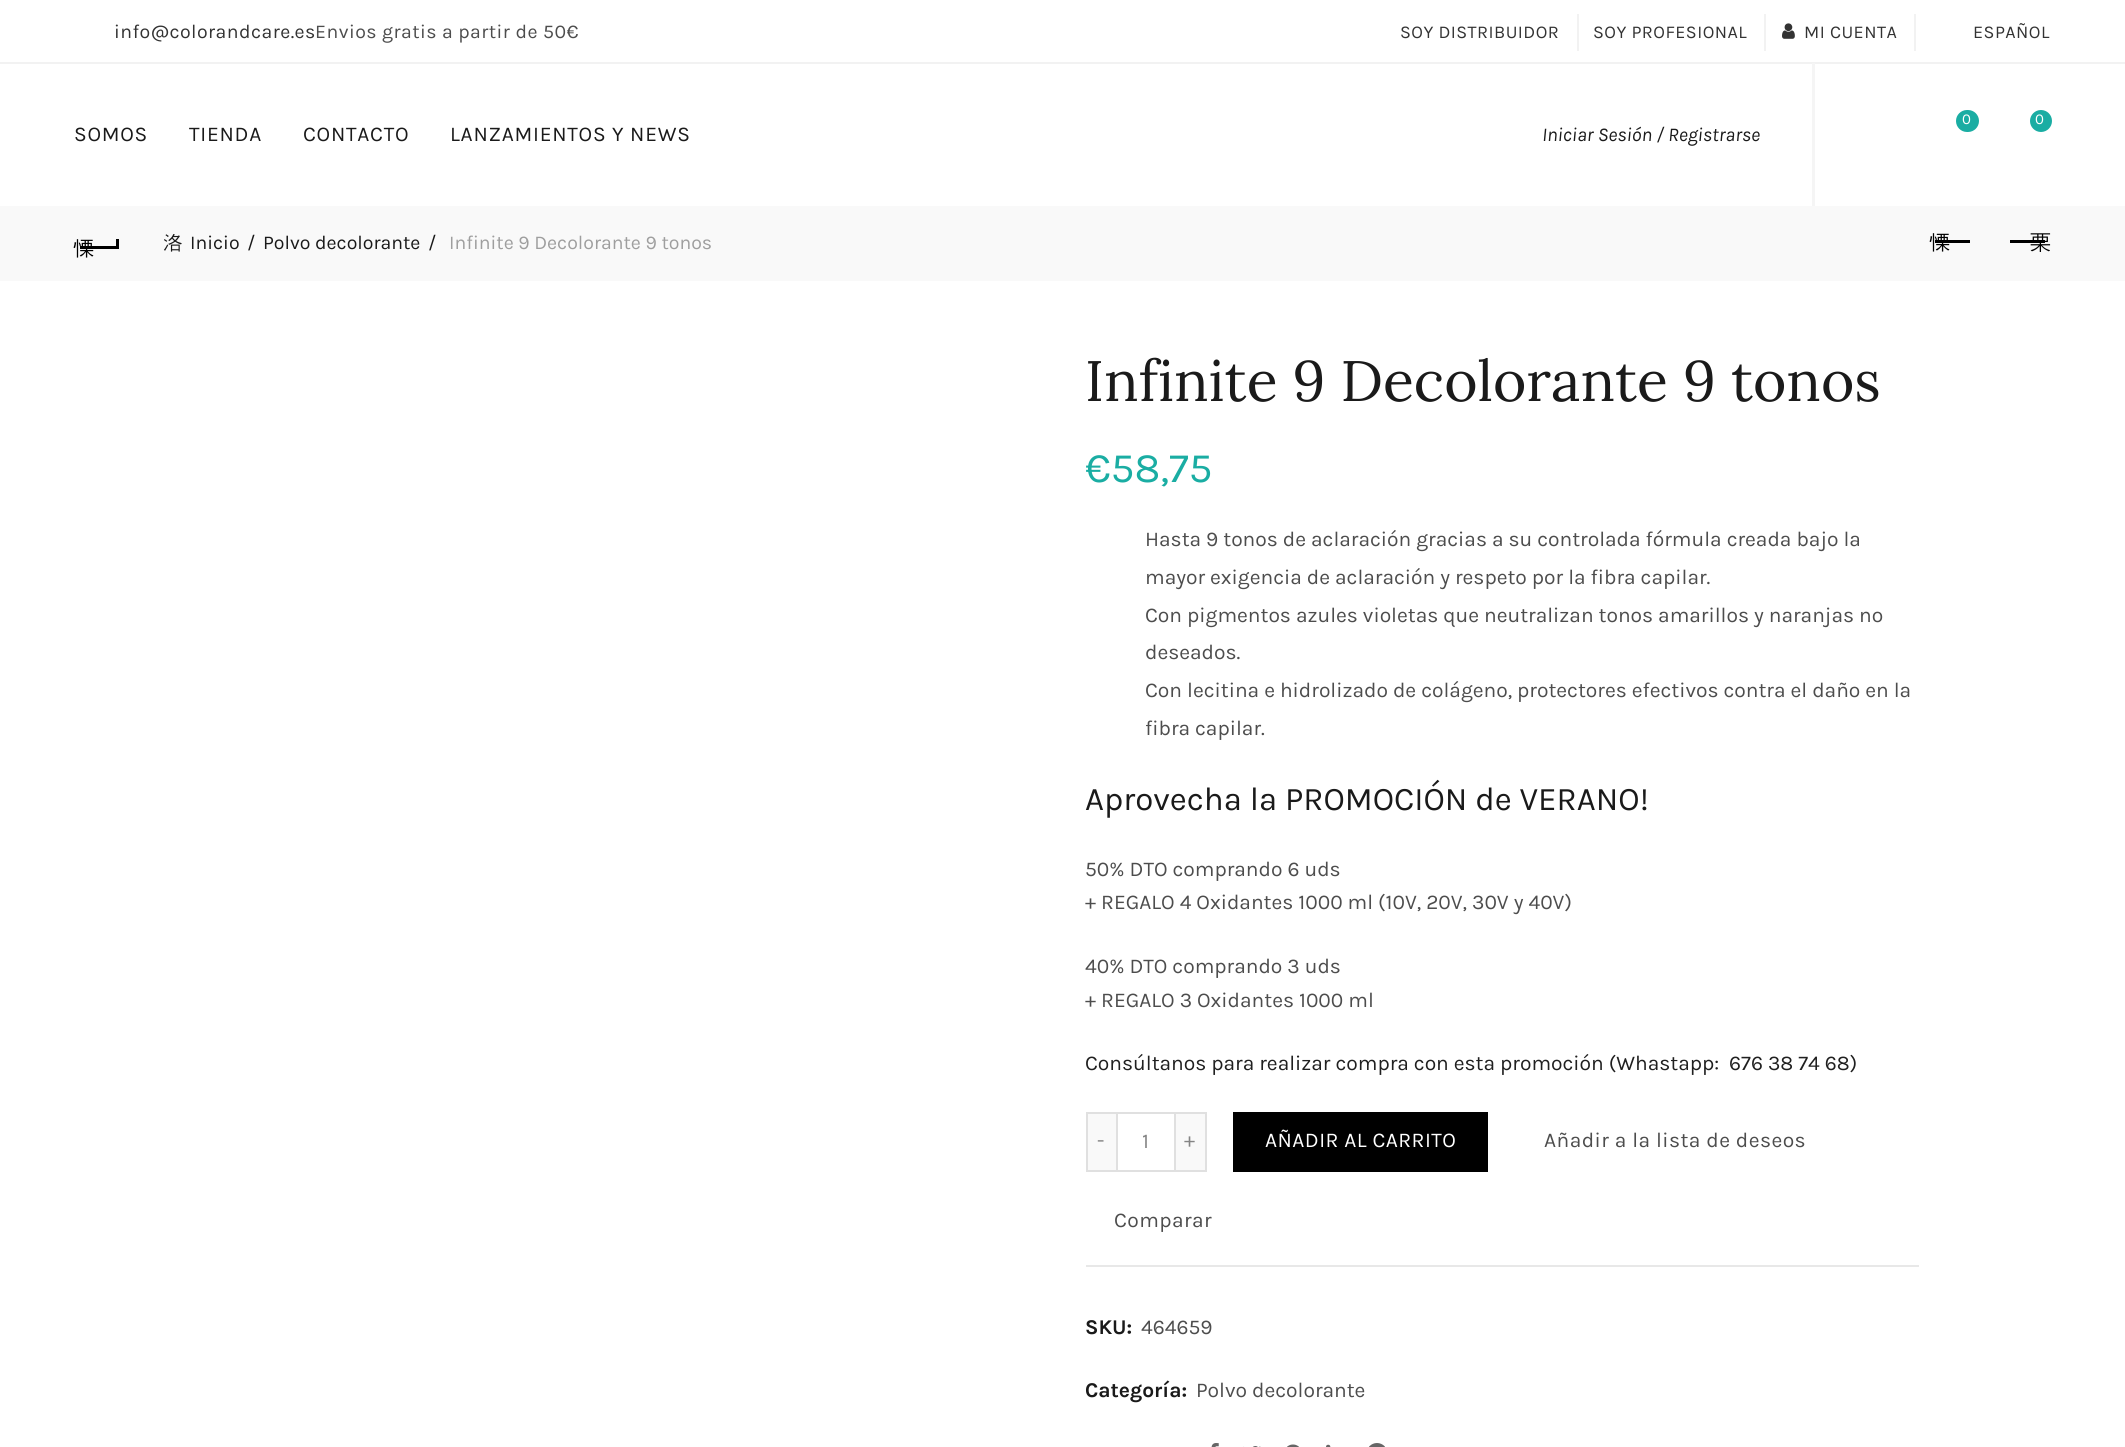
import math
import cairo

surface = cairo.ImageSurface(cairo.Format.RGB24, 2125, 1447)
ctx = cairo.Context(surface)
options = cairo.FontOptions()
options.set_hint_metrics(cairo.HintMetrics.OFF)
options.set_hint_style(cairo.HintStyle.NONE)
ctx.set_font_options(options)
ctx.set_miter_limit(4)


def ink(r, g, b):
    ctx.set_source_rgb(r / 255, g / 255, b / 255)


def write(x, y, s, family, size, color, bold=False, italic=False):
    ctx.select_font_face(family, cairo.FontSlant.ITALIC if italic else cairo.FontSlant.NORMAL, cairo.FontWeight.BOLD if bold else cairo.FontWeight.NORMAL)
    ctx.set_font_size(size)
    ink(*color)
    ctx.move_to(x, y)
    ctx.show_text(s)


def write_spaced(x, y, s, letter, word):
    ctx.move_to(x, y)
    for ch in s:
        ctx.show_text(ch)
        ctx.rel_move_to(letter + word * (ch == ' '), 0)


def block(x, y, w, h, *color):
    ink(*color)
    ctx.rectangle(x, y, w, h)
    ctx.fill()


def round_path(x, y, w, h, r):
    ctx.new_sub_path()
    for i, (u, v) in enumerate([(x + w - r, y + h - r), (x + r, y + h - r), (x + r, y + r), (x + w - r, y + r)]):
        ctx.arc(u, v, r, i * math.pi / 2, (i + 1) * math.pi / 2)
    ctx.close_path()


def paste(path, x, y, w, h):
    ctx.save()
    ctx.set_source_surface(cairo.ImageSurface.create_from_png(path), x, y)
    ctx.rectangle(x, y, w, h)
    ctx.fill()
    ctx.restore()


s1 = dict(family="Karla", size=15, color=(255, 255, 255))
s2 = dict(family="Karla", size=19.5, color=(26, 26, 26), italic=True)
s3 = dict(family="WenQuanYi Zen Hei Medium", size=21, color=(0, 0, 0))
s4 = dict(family="WenQuanYi Zen Hei Medium", size=19.5, color=(26, 26, 26))
s5 = dict(family="Karla", size=19.5, color=(26, 26, 26))
s6 = dict(family="Karla", size=19.5, color=(158, 158, 158))
s7 = dict(family="Lora", size=57, color=(26, 26, 26))
s8 = dict(family="Karla", size=42, color=(26, 173, 163))
s9 = dict(family="Karla", size=21, color=(77, 77, 77))
s10 = dict(family="Karla", size=33, color=(26, 26, 26))
s11 = dict(family="Karla", size=21, color=(32, 32, 32))
s12 = dict(family="Karla", size=21, color=(132, 132, 132))
s13 = dict(family="Karla", size=21, color=(26, 26, 26), bold=True)

ink(255, 255, 255)
ctx.paint()
block(0, 62, 2125, 2, 242, 242, 242)
ctx.select_font_face("Karla")
ctx.set_font_size(19.5)
ink(51, 51, 51)
write_spaced(114, 38, "info@colorandcare.es", 0.45, 0)
ink(77, 77, 77)
write_spaced(315, 38, "Envios gratis a partir de 50€", 0.45, 0)
ctx.set_font_size(18)
ink(51, 51, 51)
write_spaced(1400, 38, "SOY DISTRIBUIDOR", 0.45, 0)
block(1577, 14, 2, 37, 242, 242, 242)
ink(51, 51, 51)
write_spaced(1593, 38, "SOY PROFESIONAL", 0.45, 0)
block(1764, 14, 2, 37, 242, 242, 242)
paste("pic1.png", 1782, 23, 13, 16)
ink(51, 51, 51)
write_spaced(1804, 38, "MI CUENTA", 0.45, 0)
block(1914, 14, 2, 37, 242, 242, 242)
ink(51, 51, 51)
write_spaced(1973, 38, "ESPAÑOL", 0.45, 0)
ctx.set_font_size(21)
ink(26, 26, 26)
write_spaced(74, 141, "SOMOS", 0.75, 0)
write_spaced(189, 141, "TIENDA", 0.75, 0)
write_spaced(303, 141, "CONTACTO", 0.75, 0)
write_spaced(450, 141, "LANZAMIENTOS Y NEWS", 0.75, 0)
ink(26, 173, 163)
round_path(1956, 110, 23, 22, 11)
ctx.fill()
write(1962, 124, "0", **s1)
ink(26, 173, 163)
ctx.new_path()
ctx.arc(2041, 121, 11, 0, 2 * math.pi)
ctx.fill()
write(2035, 124, "0", **s1)
block(1812, 63, 3, 143, 245, 245, 245)
write(1542, 141, "Iniciar Sesión / Registrarse", **s2)
block(0, 206, 2125, 75, 249, 249, 249)
block(80, 246, 37, 3, 0, 0, 0)
write(73, 255, "慄", **s3)
block(116, 239, 3, 10, 0, 0, 0)
write(163, 249, "洛", **s4)
write(190, 249, "Inicio", **s5)
write(247, 249, "/", **s5)
write(263, 249, "Polvo decolorante", **s5)
write(428, 249, "/", **s5)
write(449, 249, "Infinite 9 Decolorante 9 tonos", **s6)
block(1935, 240, 35, 3, 0, 0, 0)
write(1929, 249, "慄", **s3)
block(2010, 240, 35, 3, 0, 0, 0)
write(2030, 249, "栗", **s3)
write(1085, 401, "Infinite 9 Decolorante 9 tonos", **s7)
write(1085, 482, "€58,75", **s8)
write(1145, 546, "Hasta 9 tonos de aclaración gracias a su controlada fórmula creada bajo la", **s9)
write(1145, 584, "mayor exigencia de aclaración y respeto por la fibra capilar.", **s9)
write(1145, 622, "Con pigmentos azules violetas que neutralizan tonos amarillos y naranjas no", **s9)
write(1145, 659, "deseados.", **s9)
write(1145, 697, "Con lecitina e hidrolizado de colágeno, protectores efectivos contra el daño en la", **s9)
write(1145, 735, "fibra capilar.", **s9)
write(1085, 810, "Aprovecha la PROMOCIÓN de VERANO!", **s10)
write(1085, 876, "50% DTO comprando 6 uds", **s9)
write(1085, 909, "+ REGALO 4 Oxidantes 1000 ml (10V, 20V, 30V y 40V)", **s9)
write(1085, 973, "40% DTO comprando 3 uds", **s9)
write(1085, 1007, "+ REGALO 3 Oxidantes 1000 ml", **s9)
write(1085, 1070, "Consúltanos para realizar compra con esta promoción (Whastapp:  676 38 74 68)", **s11)
block(1088, 1114, 28, 56, 249, 249, 249)
block(1086, 1112, 30, 2, 224, 224, 224)
block(1086, 1170, 30, 2, 224, 224, 224)
block(1086, 1112, 2, 60, 224, 224, 224)
write(1097, 1147, "-", **s12)
ctx.rectangle(1117, 1113, 58, 58)
ink(224, 224, 224)
ctx.stroke()
write(1142, 1148, "1", **s12)
block(1176, 1114, 29, 56, 249, 249, 249)
block(1176, 1112, 30, 2, 224, 224, 224)
block(1205, 1112, 2, 60, 224, 224, 224)
block(1176, 1170, 30, 2, 224, 224, 224)
write(1184, 1147, "+", **s12)
block(1233, 1112, 255, 60, 0, 0, 0)
ink(255, 255, 255)
write_spaced(1265, 1147, "AÑADIR AL CARRITO", 0.45, 0)
ink(77, 77, 77)
write_spaced(1544, 1147, "Añadir a la lista de deseos", 0.45, 0)
write_spaced(1114, 1227, "Comparar", 0.45, 0)
block(1086, 1265, 833, 2, 232, 232, 232)
write(1085, 1334, "SKU:", **s13)
write(1141, 1334, "464659", **s9)
write(1085, 1397, "Categoría:", **s13)
write(1196, 1397, "Polvo decolorante", **s9)
paste("pic2.png", 1211, 1443, 8, 4)
paste("pic3.png", 1243, 1446, 18, 1)
paste("pic4.png", 1287, 1444, 12, 3)
paste("pic5.png", 1326, 1444, 5, 3)
paste("pic6.png", 1369, 1443, 16, 4)
surface.write_to_png("screenshot.png")
